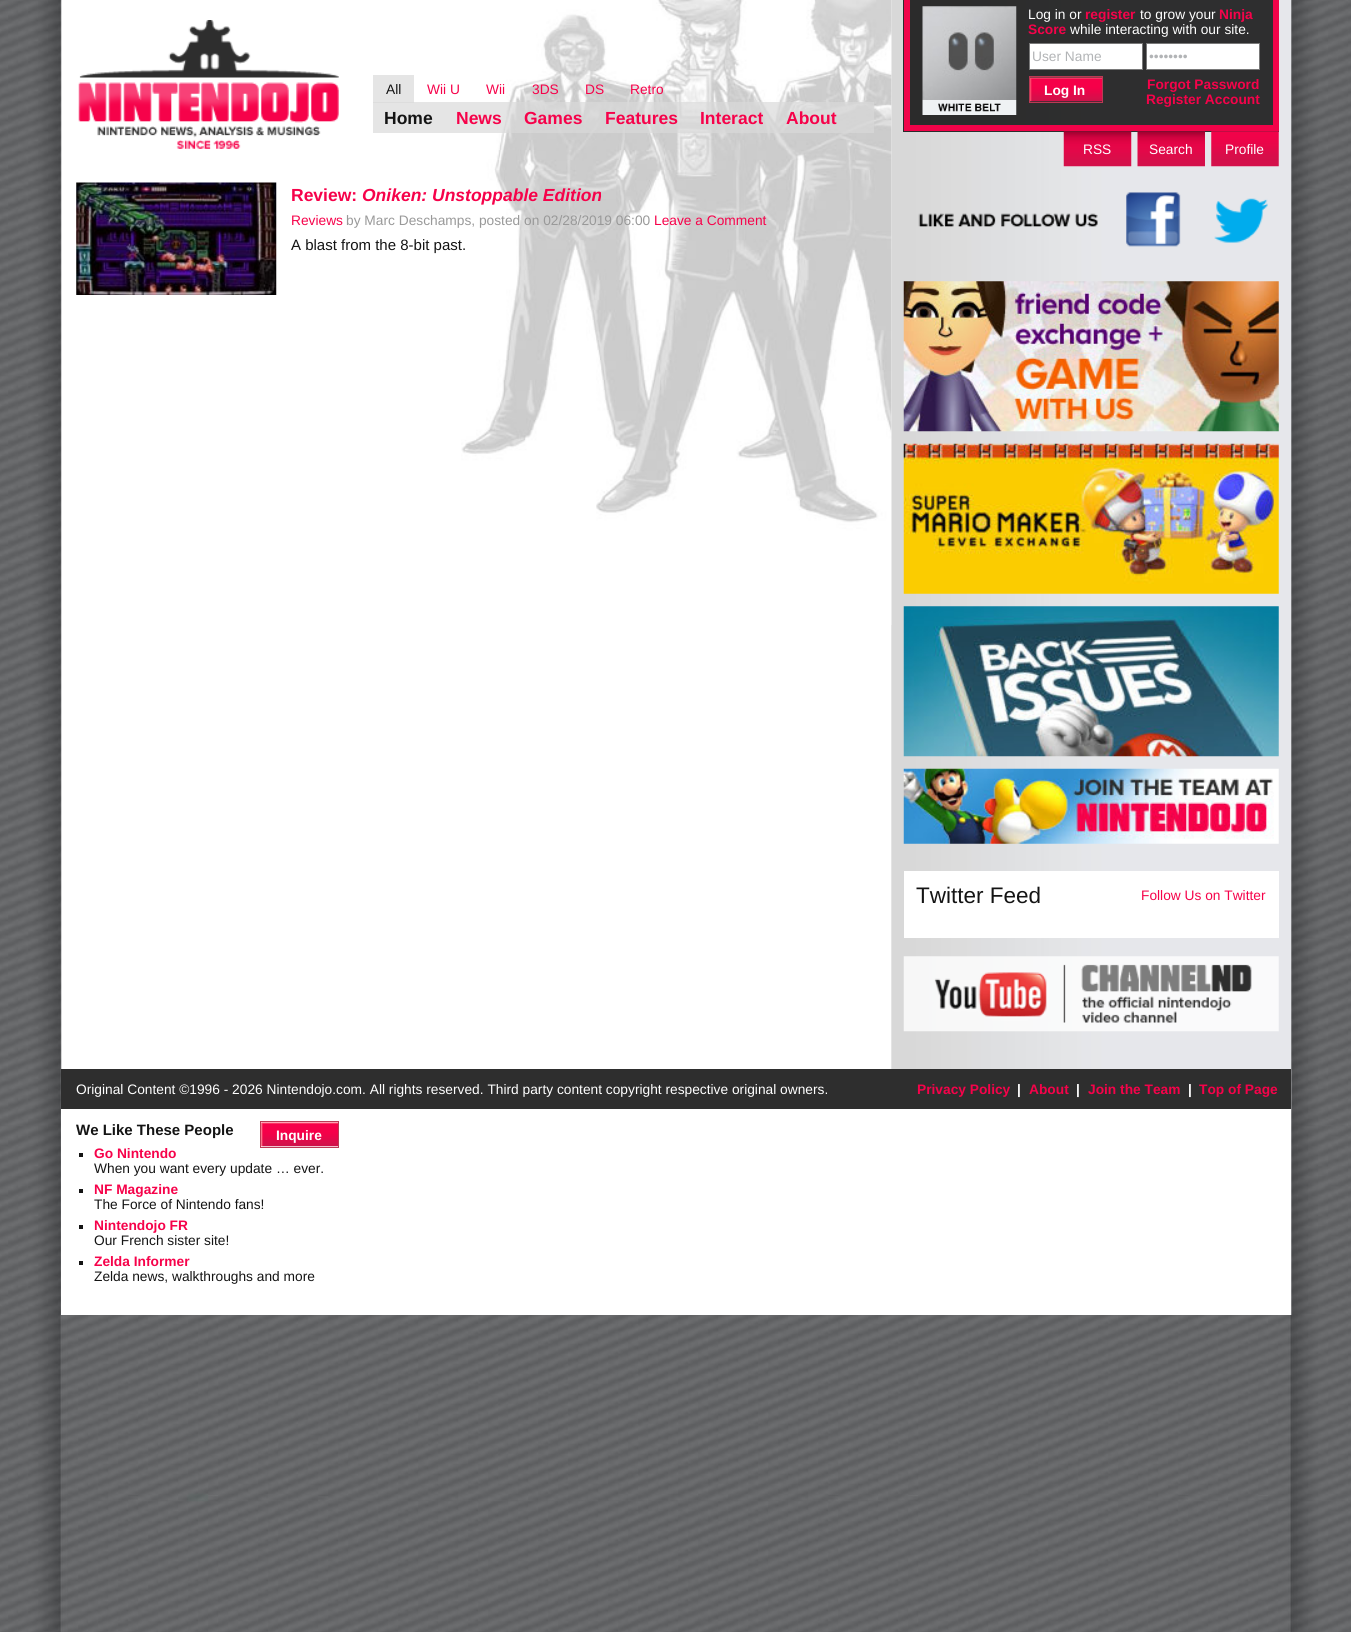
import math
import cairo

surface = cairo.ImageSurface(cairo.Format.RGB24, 1351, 1632)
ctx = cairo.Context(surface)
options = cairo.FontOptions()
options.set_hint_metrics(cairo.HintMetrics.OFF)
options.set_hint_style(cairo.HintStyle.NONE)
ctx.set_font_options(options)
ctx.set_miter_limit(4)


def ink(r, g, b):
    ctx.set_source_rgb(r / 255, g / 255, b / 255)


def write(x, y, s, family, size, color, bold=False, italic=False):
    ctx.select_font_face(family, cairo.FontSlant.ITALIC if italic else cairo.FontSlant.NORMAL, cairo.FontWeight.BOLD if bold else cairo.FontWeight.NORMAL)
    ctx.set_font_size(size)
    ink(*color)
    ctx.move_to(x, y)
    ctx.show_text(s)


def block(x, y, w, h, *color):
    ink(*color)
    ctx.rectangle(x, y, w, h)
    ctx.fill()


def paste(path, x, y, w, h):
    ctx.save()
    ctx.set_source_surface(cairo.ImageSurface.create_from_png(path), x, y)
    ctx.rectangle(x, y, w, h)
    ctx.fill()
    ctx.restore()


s1 = dict(family="Liberation Sans", size=13.75, color=(20, 20, 20))
s2 = dict(family="Liberation Sans", size=13.75, color=(246, 2, 74))
s3 = dict(family="Liberation Sans", size=17.5, color=(20, 20, 20), bold=True)
s4 = dict(family="Liberation Sans", size=17.5, color=(246, 2, 74), bold=True)
s5 = dict(family="Liberation Sans", size=17.5, color=(246, 2, 74), bold=True, italic=True)
s6 = dict(family="Liberation Sans", size=13.75, color=(153, 153, 153))
s7 = dict(family="Liberation Sans", size=15, color=(20, 20, 20))
s8 = dict(family="Liberation Sans", size=13.75, color=(255, 255, 255))
s9 = dict(family="Liberation Sans", size=13.75, color=(246, 2, 74), bold=True)
s10 = dict(family="Liberation Sans", size=13.75, color=(178, 180, 182))
s11 = dict(family="Liberation Sans", size=13.75, color=(255, 255, 255), bold=True)
s12 = dict(family="Liberation Sans", size=22.5, color=(20, 20, 20))
s13 = dict(family="Liberation Sans", size=15, color=(20, 20, 20), bold=True)

ink(255, 255, 255)
ctx.paint()
paste("pic1.png", 0, 0, 1351, 1632)
paste("pic2.png", 61, 0, 1231, 1315)
paste("pic3.png", 78, 20, 261, 129)
paste("pic4.png", 461, 0, 431, 625)
block(373, 75, 41, 28, 229, 229, 229)
write(386, 94, "All", **s1)
write(427, 94, "Wii U", **s2)
write(486, 94, "Wii", **s2)
write(532, 94, "3DS", **s2)
write(585, 94, "DS", **s2)
write(630, 94, "Retro", **s2)
ctx.set_source_rgba(0.851, 0.851, 0.851, 0.68)
ctx.rectangle(373, 102, 501, 31)
ctx.fill()
write(384, 124, "Home", **s3)
write(456, 124, "News", **s4)
write(524, 124, "Games", **s4)
write(605, 124, "Features", **s4)
write(700, 124, "Interact", **s4)
write(786, 124, "About", **s4)
paste("pic5.png", 76, 182, 201, 113)
write(291, 201, "Review:", **s4)
write(362, 201, "Oniken: Unstoppable Edition", **s5)
write(291, 225, "Reviews", **s2)
write(346, 225, "by Marc Deschamps, posted on 02/28/2019 06:00", **s6)
write(654, 225, "Leave a Comment", **s2)
write(291, 250, "A blast from the 8-bit past.", **s7)
ctx.set_source_rgba(0, 0, 0, 0.8)
ctx.rectangle(903, 0, 376, 132)
ctx.fill()
block(1273, 0, 6, 131, 241, 3, 73)
block(904, 125, 375, 6, 241, 3, 73)
block(904, 0, 6, 131, 241, 3, 73)
paste("pic6.png", 922, 6, 95, 94)
paste("pic7.png", 922, 100, 95, 15)
write(1028, 19, "Log in or", **s8)
write(1085, 19, "register", **s9)
write(1140, 19, "to grow your", **s8)
write(1219, 19, "Ninja", **s9)
write(1028, 34, "Score", **s9)
write(1070, 34, "while interacting with our site.", **s8)
ctx.rectangle(1029.5, 43.5, 113, 26)
ctx.fill_preserve()
ink(121, 121, 121)
ctx.set_line_width(1)
ctx.stroke()
ctx.save()
ctx.rectangle(1033, 45, 106, 23)
ctx.clip()
write(1032, 61, "User Name", **s10)
ctx.restore()
ink(255, 255, 255)
ctx.rectangle(1146.5, 43.5, 113, 26)
ctx.fill_preserve()
ink(121, 121, 121)
ctx.stroke()
write(1149, 61, "••••••••", **s10)
paste("pic8.png", 1030, 77, 72, 25)
ctx.rectangle(1029.5, 76.5, 73, 26)
ink(187, 58, 84)
ctx.stroke()
write(1044, 95, "Log In", **s11)
write(1147, 89, "Forgot Password", **s9)
write(1146, 104, "Register Account", **s9)
paste("pic9.png", 1063, 131, 69, 36)
write(1083, 154, "RSS", **s8)
paste("pic10.png", 1137, 131, 68, 36)
write(1149, 154, "Search", **s8)
paste("pic11.png", 1211, 131, 68, 36)
write(1225, 154, "Profile", **s8)
paste("pic12.png", 918, 213, 180, 14)
paste("pic13.png", 1126, 192, 55, 55)
paste("pic14.png", 1214, 198, 54, 45)
paste("pic15.png", 903, 281, 376, 151)
paste("pic16.png", 903, 443, 376, 151)
paste("pic17.png", 903, 606, 376, 151)
paste("pic18.png", 903, 768, 376, 76)
block(904, 871, 375, 67, 255, 255, 255)
write(916, 903, "Twitter Feed", **s12)
write(1141, 900, "Follow Us on Twitter", **s2)
paste("pic19.png", 903, 956, 376, 76)
block(61, 1109, 1230, 206, 255, 255, 255)
block(61, 1069, 1230, 40, 46, 46, 46)
write(76, 1094, "Original Content ©1996 - 2026 Nintendojo.com. All rights reserved. Third party content copyright respective original owners.", **s8)
write(917, 1094, "Privacy Policy", **s9)
write(1017, 1094, "|", **s11)
write(1029, 1094, "About", **s9)
write(1076, 1094, "|", **s11)
write(1088, 1094, "Join the Team", **s9)
write(1188, 1094, "|", **s11)
write(1199, 1094, "Top of Page", **s9)
write(76, 1135, "We Like These People", **s13)
paste("pic20.png", 261, 1122, 77, 25)
ctx.rectangle(260.5, 1121.5, 78, 26)
ink(187, 58, 84)
ctx.stroke()
write(276, 1140, "Inquire", **s11)
block(79, 1153, 4, 4, 20, 20, 20)
write(94, 1158, "Go Nintendo", **s9)
write(94, 1173, "When you want every update … ever.", **s1)
block(79, 1189, 4, 4, 20, 20, 20)
write(94, 1194, "NF Magazine", **s9)
write(94, 1209, "The Force of Nintendo fans!", **s1)
block(79, 1225, 4, 4, 20, 20, 20)
write(94, 1230, "Nintendojo FR", **s9)
write(94, 1245, "Our French sister site!", **s1)
block(79, 1261, 4, 4, 20, 20, 20)
write(94, 1266, "Zelda Informer", **s9)
write(94, 1281, "Zelda news, walkthroughs and more", **s1)
surface.write_to_png("screenshot.png")
